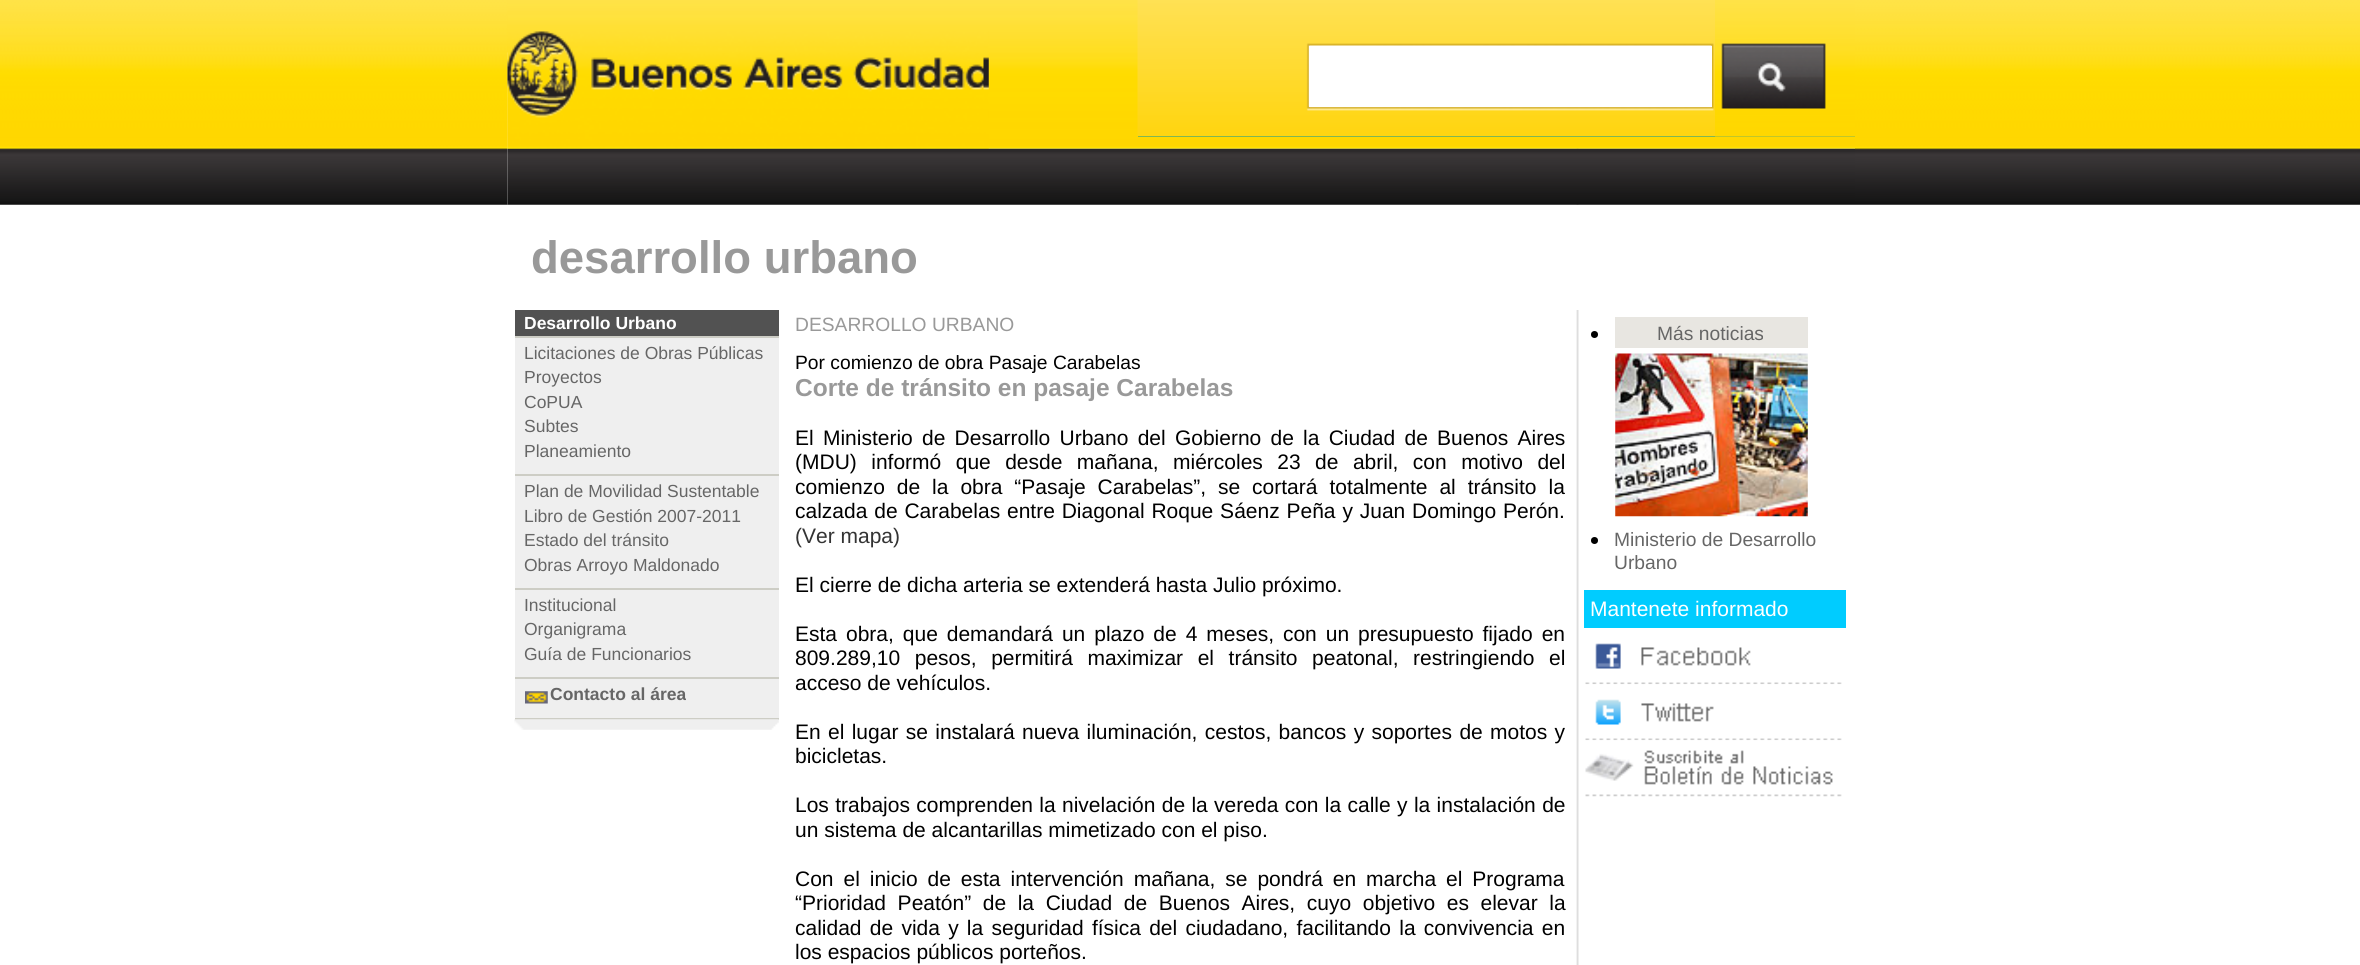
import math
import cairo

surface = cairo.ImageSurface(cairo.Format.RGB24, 2360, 965)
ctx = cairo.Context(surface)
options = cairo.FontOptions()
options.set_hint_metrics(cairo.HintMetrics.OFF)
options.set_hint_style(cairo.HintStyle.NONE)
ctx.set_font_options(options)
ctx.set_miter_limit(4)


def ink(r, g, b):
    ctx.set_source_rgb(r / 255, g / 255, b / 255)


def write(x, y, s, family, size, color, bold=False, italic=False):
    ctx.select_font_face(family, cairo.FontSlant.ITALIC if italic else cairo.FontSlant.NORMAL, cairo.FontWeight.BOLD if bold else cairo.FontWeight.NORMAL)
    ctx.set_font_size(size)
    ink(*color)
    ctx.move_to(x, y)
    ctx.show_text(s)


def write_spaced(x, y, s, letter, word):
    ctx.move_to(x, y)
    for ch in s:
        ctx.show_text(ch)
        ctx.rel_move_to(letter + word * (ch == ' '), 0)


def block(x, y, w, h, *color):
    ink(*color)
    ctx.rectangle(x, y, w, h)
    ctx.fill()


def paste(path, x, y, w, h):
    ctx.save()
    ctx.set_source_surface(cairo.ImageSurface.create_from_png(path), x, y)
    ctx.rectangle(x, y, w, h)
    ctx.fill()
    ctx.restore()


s1 = dict(family="Liberation Sans", size=45.5, color=(153, 153, 153), bold=True)
s2 = dict(family="Liberation Sans", size=17.5, color=(255, 255, 255), bold=True)
s3 = dict(family="Liberation Sans", size=17.5, color=(102, 102, 102))
s4 = dict(family="Liberation Sans", size=17.5, color=(102, 102, 102), bold=True)
s5 = dict(family="Liberation Sans", size=19.25, color=(153, 153, 153))
s6 = dict(family="Liberation Sans", size=19.25, color=(0, 0, 0))
s7 = dict(family="Liberation Sans", size=24.5, color=(153, 153, 153), bold=True)
s8 = dict(family="Liberation Sans", size=21, color=(51, 51, 51))
s9 = dict(family="Liberation Sans", size=21, color=(0, 0, 0))
s10 = dict(family="Liberation Sans", size=19.25, color=(102, 102, 102))
s11 = dict(family="Liberation Sans", size=21, color=(255, 255, 255))

ink(255, 255, 255)
ctx.paint()
paste("pic1.png", 0, 0, 2360, 205)
block(1579, 148, 276, 57, 255, 255, 255)
paste("pic7.png", 507, 52, 1072, 913)
paste("pic2.png", 507, 0, 1348, 149)
paste("pic3.png", 507, 31, 482, 118)
block(1138, 136, 717, 1, 0, 153, 153)
paste("pic4.png", 1137, 0, 718, 137)
block(1309, 46, 403, 61, 255, 255, 255)
paste("pic5.png", 1715, 0, 140, 137)
paste("pic6.png", 507, 148, 1348, 57)
block(1576, 205, 3, 105, 255, 255, 255)
write(531, 273, "desarrollo urbano", **s1)
block(515, 338, 264, 380, 239, 239, 239)
block(515, 336, 264, 2, 205, 205, 197)
block(515, 310, 264, 26, 82, 82, 82)
write(524, 329, "Desarrollo Urbano", **s2)
block(515, 474, 264, 2, 205, 205, 197)
write(524, 359, "Licitaciones de Obras Públicas", **s3)
write(524, 383, "Proyectos", **s3)
write(524, 408, "CoPUA", **s3)
write(524, 432, "Subtes", **s3)
write(524, 457, "Planeamiento", **s3)
block(515, 588, 264, 2, 205, 205, 197)
write(524, 497, "Plan de Movilidad Sustentable", **s3)
write(524, 522, "Libro de Gestión 2007-2011", **s3)
write(524, 546, "Estado del tránsito", **s3)
write(524, 571, "Obras Arroyo Maldonado", **s3)
block(515, 677, 264, 2, 205, 205, 197)
write(524, 611, "Institucional", **s3)
write(524, 635, "Organigrama", **s3)
write(524, 660, "Guía de Funcionarios", **s3)
block(515, 718, 264, 2, 205, 205, 197)
paste("pic8.png", 525, 691, 23, 13)
write(550, 700, "Contacto al área", **s4)
paste("pic9.png", 514, 719, 265, 11)
write(795, 331, "DESARROLLO URBANO", **s5)
write(795, 369, "Por comienzo de obra Pasaje Carabelas", **s6)
write(795, 396, "Corte de tránsito en pasaje Carabelas", **s7)
ctx.select_font_face("Liberation Sans")
ctx.set_font_size(21)
ink(0, 0, 0)
write_spaced(795, 445, "El Ministerio de Desarrollo Urbano del Gobierno de la Ciudad de Buenos Aires", 0, 3.4)
write_spaced(795, 469, "(MDU) informó que desde mañana, miércoles 23 de abril, con motivo del", 0, 8.6)
write_spaced(795, 494, "comienzo de la obra “Pasaje Carabelas”, se cortará totalmente al tránsito la", 0, 6.1)
write_spaced(795, 518, "calzada de Carabelas entre Diagonal Roque Sáenz Peña y Juan Domingo Perón.", 0, 1)
write(795, 543, "(Ver mapa)", **s8)
write(795, 592, "El cierre de dicha arteria se extenderá hasta Julio próximo.", **s9)
write_spaced(795, 641, "Esta obra, que demandará un plazo de 4 meses, con un presupuesto fijado en", 0, 3.1)
write_spaced(795, 665, "809.289,10 pesos, permitirá maximizar el tránsito peatonal, restringiendo el", 0, 8.75)
write(795, 690, "acceso de vehículos.", **s9)
write_spaced(795, 739, "En el lugar se instalará nueva iluminación, cestos, bancos y soportes de motos y", 0, 1.5)
write(795, 763, "bicicletas.", **s9)
write_spaced(795, 812, "Los trabajos comprenden la nivelación de la vereda con la calle y la instalación de", 0, 0.5)
write(795, 837, "un sistema de alcantarillas mimetizado con el piso.", **s9)
write_spaced(795, 886, "Con el inicio de esta intervención mañana, se pondrá en marcha el Programa", 0, 4.1)
write_spaced(795, 910, "“Prioridad Peatón” de la Ciudad de Buenos Aires, cuyo objetivo es elevar la", 0, 5.75)
write_spaced(795, 935, "calidad de vida y la seguridad física del ciudadano, facilitando la convivencia en", 0, 2.4)
write(795, 959, "los espacios públicos porteños.", **s9)
ctx.new_path()
ctx.arc(1594.5, 334.5, 3.5, 0, 2 * math.pi)
ctx.fill()
block(1615, 317, 193, 31, 232, 230, 225)
write(1657, 340, "Más noticias", **s10)
paste("pic10.png", 1615, 353, 193, 164)
ink(0, 0, 0)
ctx.arc(1594.5, 540.5, 3.5, 0, 2 * math.pi)
ctx.fill()
write(1614, 546, "Ministerio de Desarrollo", **s10)
write(1614, 569, "Urbano", **s10)
block(1584, 590, 262, 38, 0, 204, 255)
write(1590, 616, "Mantenete informado", **s11)
paste("pic11.png", 1585, 643, 257, 42)
paste("pic12.png", 1585, 684, 257, 57)
paste("pic13.png", 1585, 740, 257, 57)
surface.write_to_png("screenshot.png")
